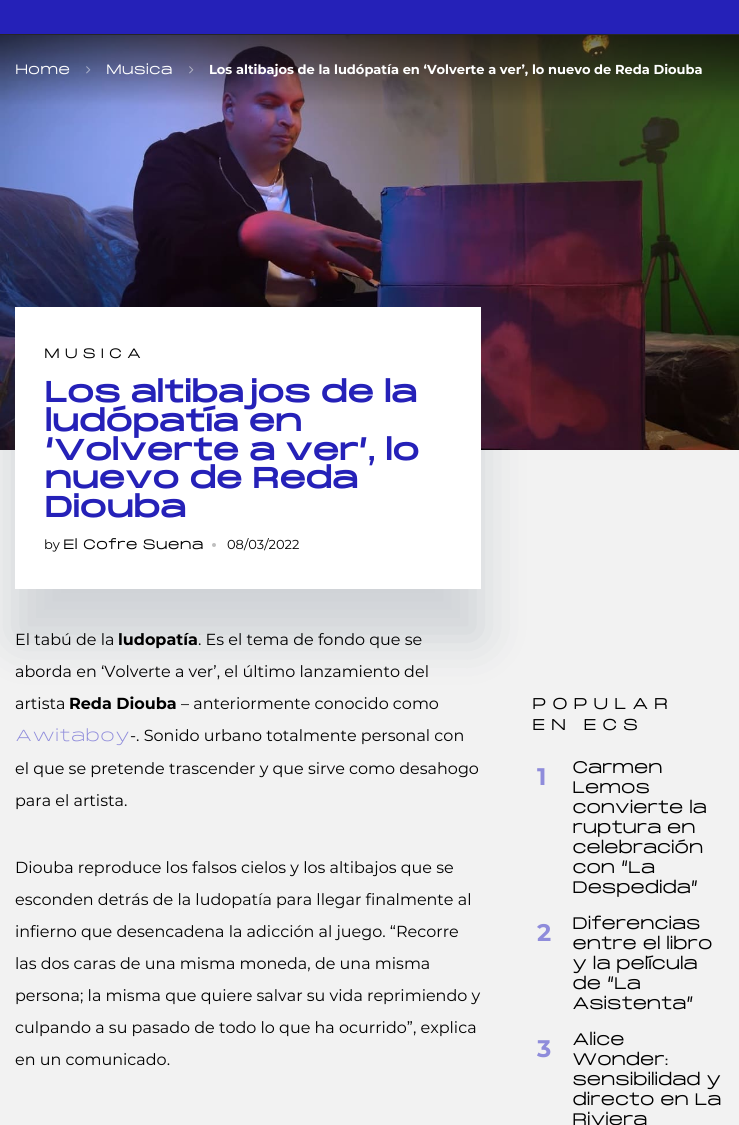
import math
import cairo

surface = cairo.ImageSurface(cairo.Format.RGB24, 739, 1125)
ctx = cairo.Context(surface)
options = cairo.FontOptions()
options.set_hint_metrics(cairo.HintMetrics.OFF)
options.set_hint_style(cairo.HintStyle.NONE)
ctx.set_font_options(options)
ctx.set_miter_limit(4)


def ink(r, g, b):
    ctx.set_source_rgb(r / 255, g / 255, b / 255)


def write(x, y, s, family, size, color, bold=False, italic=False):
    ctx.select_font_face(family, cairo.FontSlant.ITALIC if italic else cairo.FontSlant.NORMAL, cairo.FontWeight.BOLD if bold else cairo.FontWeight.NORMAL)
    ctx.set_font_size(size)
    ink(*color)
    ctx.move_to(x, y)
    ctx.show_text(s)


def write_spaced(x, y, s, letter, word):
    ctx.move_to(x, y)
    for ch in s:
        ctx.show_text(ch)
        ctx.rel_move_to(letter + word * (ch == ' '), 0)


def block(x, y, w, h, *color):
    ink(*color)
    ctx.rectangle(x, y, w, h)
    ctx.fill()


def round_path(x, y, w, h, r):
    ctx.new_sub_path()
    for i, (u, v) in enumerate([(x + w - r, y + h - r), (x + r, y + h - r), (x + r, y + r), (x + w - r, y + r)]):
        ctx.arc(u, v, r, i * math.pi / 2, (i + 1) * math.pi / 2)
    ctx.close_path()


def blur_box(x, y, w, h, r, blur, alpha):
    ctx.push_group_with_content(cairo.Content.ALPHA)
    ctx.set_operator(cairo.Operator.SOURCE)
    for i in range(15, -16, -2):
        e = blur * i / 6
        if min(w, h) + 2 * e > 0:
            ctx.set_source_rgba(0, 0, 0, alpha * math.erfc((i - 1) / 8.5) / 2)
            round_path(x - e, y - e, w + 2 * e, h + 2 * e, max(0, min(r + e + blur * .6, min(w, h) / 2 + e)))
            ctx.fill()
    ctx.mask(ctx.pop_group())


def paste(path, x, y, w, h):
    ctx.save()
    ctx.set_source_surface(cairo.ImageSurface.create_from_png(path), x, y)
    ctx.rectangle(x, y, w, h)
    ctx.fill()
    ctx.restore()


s1 = dict(family="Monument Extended", size=13, color=(255, 255, 255), bold=True)
s2 = dict(family="Montserrat", size=13, color=(255, 255, 255), bold=True)
s3 = dict(family="Montserrat", size=13, color=(0, 0, 0))
s4 = dict(family="Monument Extended", size=13, color=(0, 0, 0), bold=True)
s5 = dict(family="Montserrat", size=16, color=(0, 0, 0))
s6 = dict(family="Montserrat", size=16, color=(0, 0, 0), bold=True)
s7 = dict(family="Monument Extended Light", size=16, color=(143, 140, 219))
s8 = dict(family="Montserrat", size=24, color=(143, 140, 219), bold=True)

ink(242, 242, 242)
ctx.paint()
block(0, 0, 739, 34, 37, 33, 184)
block(0, 34, 739, 1, 38, 38, 38)
paste("pic1.png", 0, 35, 739, 415)
write(15, 74, "Home", **s1)
paste("pic2.png", 86, 66, 5, 8)
write(106, 74, "Musica", **s1)
paste("pic3.png", 189, 66, 5, 8)
write(209, 74, "Los altibajos de la ludópatía en ‘Volverte a ver’, lo nuevo de Reda Diouba", **s2)
ink(5, 31, 57)
blur_box(15, 357, 466, 282, 0, 25, 0.15)
block(15, 307, 466, 282, 255, 255, 255)
ctx.select_font_face("Monument Extended", cairo.FontSlant.NORMAL, cairo.FontWeight.BOLD)
ink(0, 0, 0)
write_spaced(44, 358, "MUSICA", 5, 0)
ctx.select_font_face("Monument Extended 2", cairo.FontSlant.NORMAL, cairo.FontWeight.BOLD)
ctx.set_font_size(28.75)
ink(37, 33, 184)
write_spaced(44, 402, "Los altibajos de la", -1.25, 0)
write_spaced(44, 431, "ludópatía en", -1.25, 0)
write_spaced(44, 460, "‘Volverte a ver’, lo", -1.25, 0)
write_spaced(44, 488, "nuevo de Reda", -1.25, 0)
write_spaced(44, 517, "Diouba", -1.25, 0)
write(44, 549, "by", **s3)
write(63, 549, "El Cofre Suena", **s4)
ink(191, 191, 191)
ctx.new_path()
ctx.arc(214, 545, 2, 0, 2 * math.pi)
ctx.fill()
write(227, 549, "08/03/2022", **s3)
write(15, 645, "El tabú de la", **s5)
write(118, 645, "ludopatía", **s6)
write(198, 645, ". Es el tema de fondo que se", **s5)
write(15, 677, "aborda en ‘Volverte a ver’, el último lanzamiento del", **s5)
write(15, 709, "artista", **s5)
write(69, 709, "Reda Diouba", **s6)
write(181, 709, "– anteriormente conocido como", **s5)
write(15, 741, "Awitaboy", **s7)
write(130, 741, "-. Sonido urbano totalmente personal con", **s5)
write(15, 774, "el que se pretende trascender y que sirve como desahogo", **s5)
write(15, 806, "para el artista.", **s5)
write(15, 873, "Diouba reproduce los falsos cielos y los altibajos que se", **s5)
write(15, 905, "esconden detrás de la ludopatía para llegar finalmente al", **s5)
write(15, 937, "infierno que desencadena la adicción al juego. “Recorre", **s5)
write(15, 969, "las dos caras de una misma moneda, de una misma", **s5)
write(15, 1001, "persona; la misma que quiere salvar su vida reprimiendo y", **s5)
write(15, 1033, "culpando a su pasado de todo lo que ha ocurrido”, explica", **s5)
write(15, 1065, "en un comunicado.", **s5)
ctx.select_font_face("Monument Extended", cairo.FontSlant.NORMAL, cairo.FontWeight.BOLD)
ctx.set_font_size(15)
write_spaced(532, 709, "POPULAR", 5.75, 0)
write_spaced(532, 730, "EN ECS", 5.75, 0)
write(537, 785, "1", **s8)
ctx.select_font_face("Monument Extended", cairo.FontSlant.NORMAL, cairo.FontWeight.BOLD)
ctx.set_font_size(16)
ink(0, 0, 0)
write_spaced(572, 773, "Carmen", -0.5, 0)
write_spaced(572, 793, "Lemos", -0.5, 0)
write_spaced(572, 813, "convierte la", -0.5, 0)
write_spaced(572, 833, "ruptura en", -0.5, 0)
write_spaced(572, 853, "celebración", -0.5, 0)
write_spaced(572, 873, "con “La", -0.5, 0)
write_spaced(572, 893, "Despedida”", -0.5, 0)
write(537, 941, "2", **s8)
ctx.select_font_face("Monument Extended", cairo.FontSlant.NORMAL, cairo.FontWeight.BOLD)
ctx.set_font_size(16)
ink(0, 0, 0)
write_spaced(572, 929, "Diferencias", -0.5, 0)
write_spaced(572, 949, "entre el libro", -0.5, 0)
write_spaced(572, 969, "y la película", -0.5, 0)
write_spaced(572, 989, "de “La", -0.5, 0)
write_spaced(572, 1009, "Asistenta”", -0.5, 0)
write(537, 1057, "3", **s8)
ctx.select_font_face("Monument Extended", cairo.FontSlant.NORMAL, cairo.FontWeight.BOLD)
ctx.set_font_size(16)
ink(0, 0, 0)
write_spaced(572, 1045, "Alice", -0.5, 0)
write_spaced(572, 1065, "Wonder:", -0.5, 0)
write_spaced(572, 1085, "sensibilidad y", -0.5, 0)
write_spaced(572, 1105, "directo en La", -0.5, 0)
write_spaced(572, 1125, "Riviera", -0.5, 0)
surface.write_to_png("screenshot.png")
